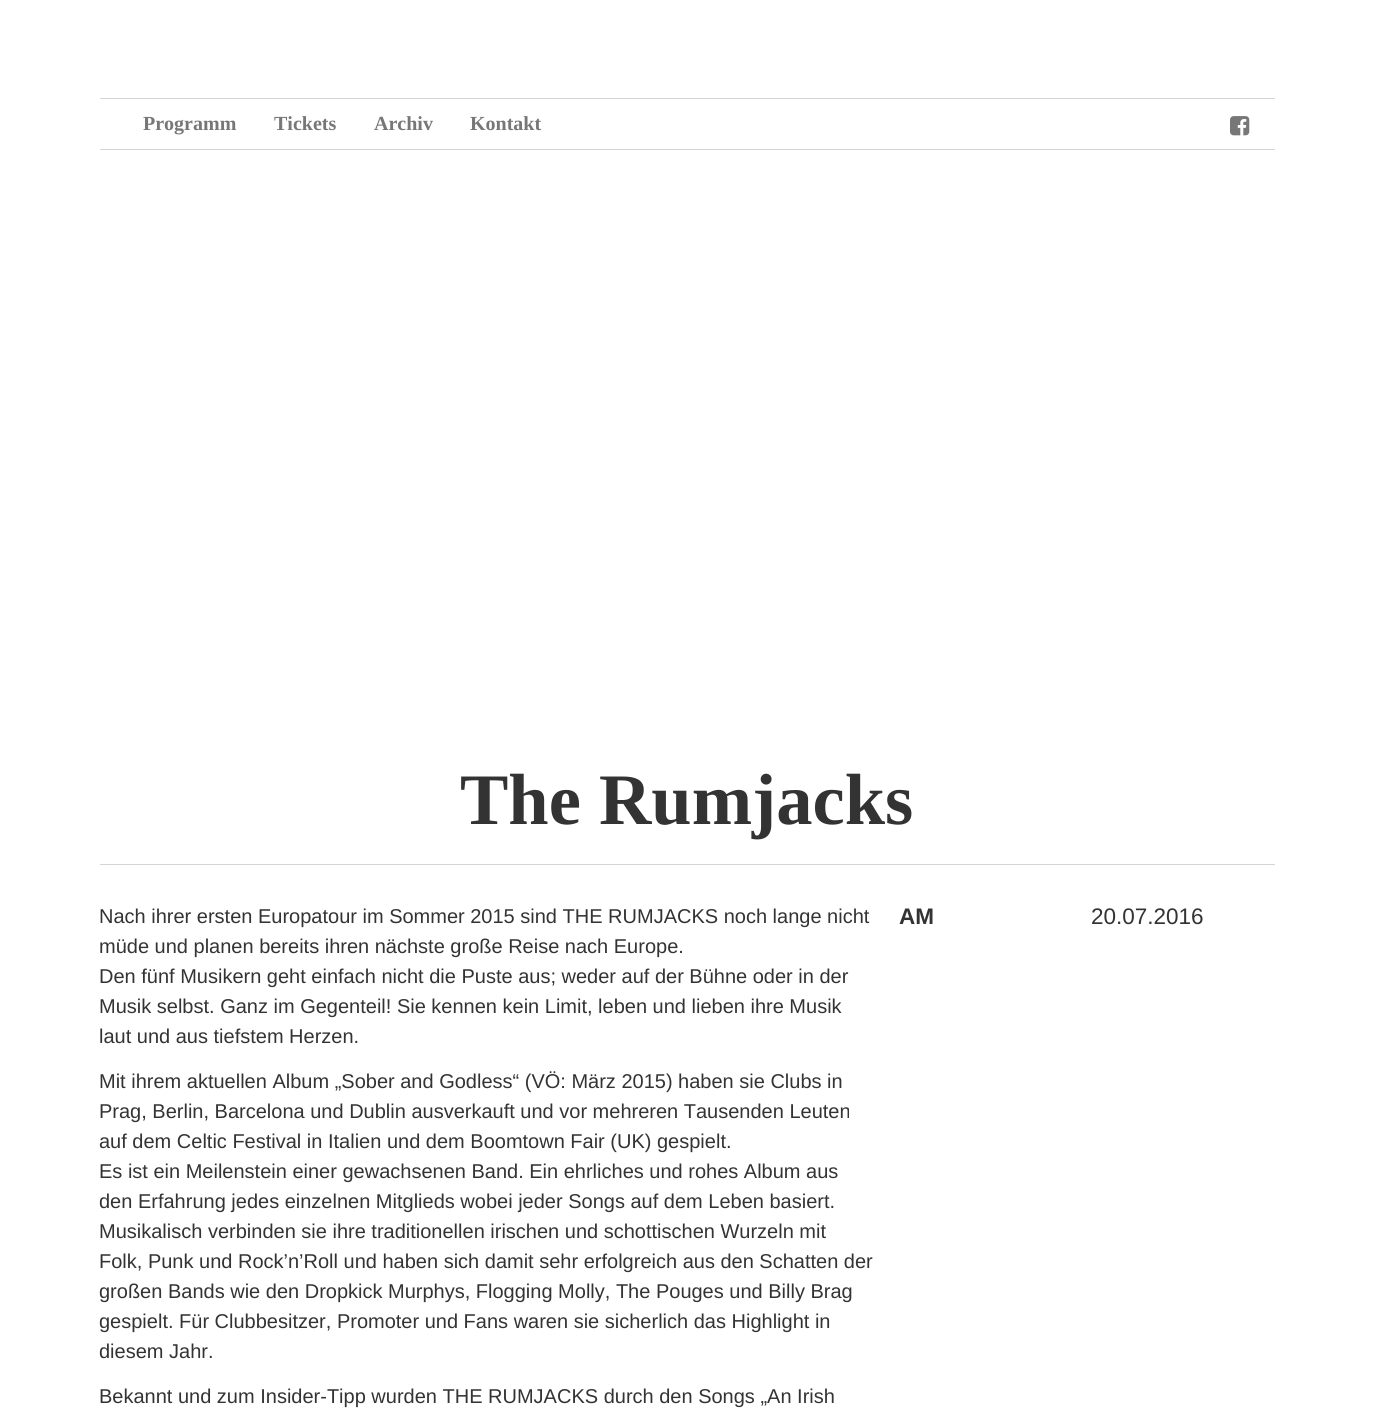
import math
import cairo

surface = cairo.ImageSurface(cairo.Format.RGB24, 1373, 1416)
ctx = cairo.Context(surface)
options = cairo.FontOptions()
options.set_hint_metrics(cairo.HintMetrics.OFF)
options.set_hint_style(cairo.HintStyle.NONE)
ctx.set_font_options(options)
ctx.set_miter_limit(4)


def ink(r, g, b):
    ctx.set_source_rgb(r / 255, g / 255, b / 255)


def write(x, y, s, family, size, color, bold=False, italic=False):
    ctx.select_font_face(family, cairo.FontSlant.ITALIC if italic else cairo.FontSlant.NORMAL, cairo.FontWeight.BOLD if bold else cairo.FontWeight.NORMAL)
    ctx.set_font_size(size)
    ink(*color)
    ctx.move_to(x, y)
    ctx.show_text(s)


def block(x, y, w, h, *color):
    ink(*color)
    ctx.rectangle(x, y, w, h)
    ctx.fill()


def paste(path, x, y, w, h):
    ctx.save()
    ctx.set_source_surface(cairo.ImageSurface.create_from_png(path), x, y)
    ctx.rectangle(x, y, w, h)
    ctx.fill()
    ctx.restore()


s1 = dict(family="Liberation Serif", size=20, color=(119, 119, 119), bold=True)
s2 = dict(family="Liberation Serif", size=72.5, color=(51, 51, 51), bold=True)
s3 = dict(family="Liberation Sans", size=20, color=(51, 51, 51))
s4 = dict(family="Liberation Sans", size=22.5, color=(51, 51, 51), bold=True)
s5 = dict(family="Liberation Sans", size=22.5, color=(51, 51, 51))

ink(255, 255, 255)
ctx.paint()
block(100, 98, 1175, 1, 212, 212, 212)
block(100, 149, 1175, 1, 212, 212, 212)
write(143, 130, "Programm", **s1)
write(274, 130, "Tickets", **s1)
write(374, 130, "Archiv", **s1)
write(470, 130, "Kontakt", **s1)
paste("pic1.png", 1230, 116, 20, 20)
write(460, 824, "The Rumjacks", **s2)
block(100, 864, 1175, 1, 212, 212, 212)
write(99, 923, "Nach ihrer ersten Europatour im Sommer 2015 sind THE RUMJACKS noch lange nicht", **s3)
write(99, 953, "müde und planen bereits ihren nächste große Reise nach Europe.", **s3)
write(99, 983, "Den fünf Musikern geht einfach nicht die Puste aus; weder auf der Bühne oder in der", **s3)
write(99, 1013, "Musik selbst. Ganz im Gegenteil! Sie kennen kein Limit, leben und lieben ihre Musik", **s3)
write(99, 1043, "laut und aus tiefstem Herzen.", **s3)
write(99, 1088, "Mit ihrem aktuellen Album „Sober and Godless“ (VÖ: März 2015) haben sie Clubs in", **s3)
write(99, 1118, "Prag, Berlin, Barcelona und Dublin ausverkauft und vor mehreren Tausenden Leuten", **s3)
write(99, 1148, "auf dem Celtic Festival in Italien und dem Boomtown Fair (UK) gespielt.", **s3)
write(99, 1178, "Es ist ein Meilenstein einer gewachsenen Band. Ein ehrliches und rohes Album aus", **s3)
write(99, 1208, "den Erfahrung jedes einzelnen Mitglieds wobei jeder Songs auf dem Leben basiert.", **s3)
write(99, 1238, "Musikalisch verbinden sie ihre traditionellen irischen und schottischen Wurzeln mit", **s3)
write(99, 1268, "Folk, Punk und Rock’n’Roll und haben sich damit sehr erfolgreich aus den Schatten der", **s3)
write(99, 1298, "großen Bands wie den Dropkick Murphys, Flogging Molly, The Pouges und Billy Brag", **s3)
write(99, 1328, "gespielt. Für Clubbesitzer, Promoter und Fans waren sie sicherlich das Highlight in", **s3)
write(99, 1358, "diesem Jahr.", **s3)
write(99, 1403, "Bekannt und zum Insider-Tipp wurden THE RUMJACKS durch den Songs „An Irish", **s3)
write(899, 924, "AM", **s4)
write(1091, 924, "20.07.2016", **s5)
surface.write_to_png("screenshot.png")
